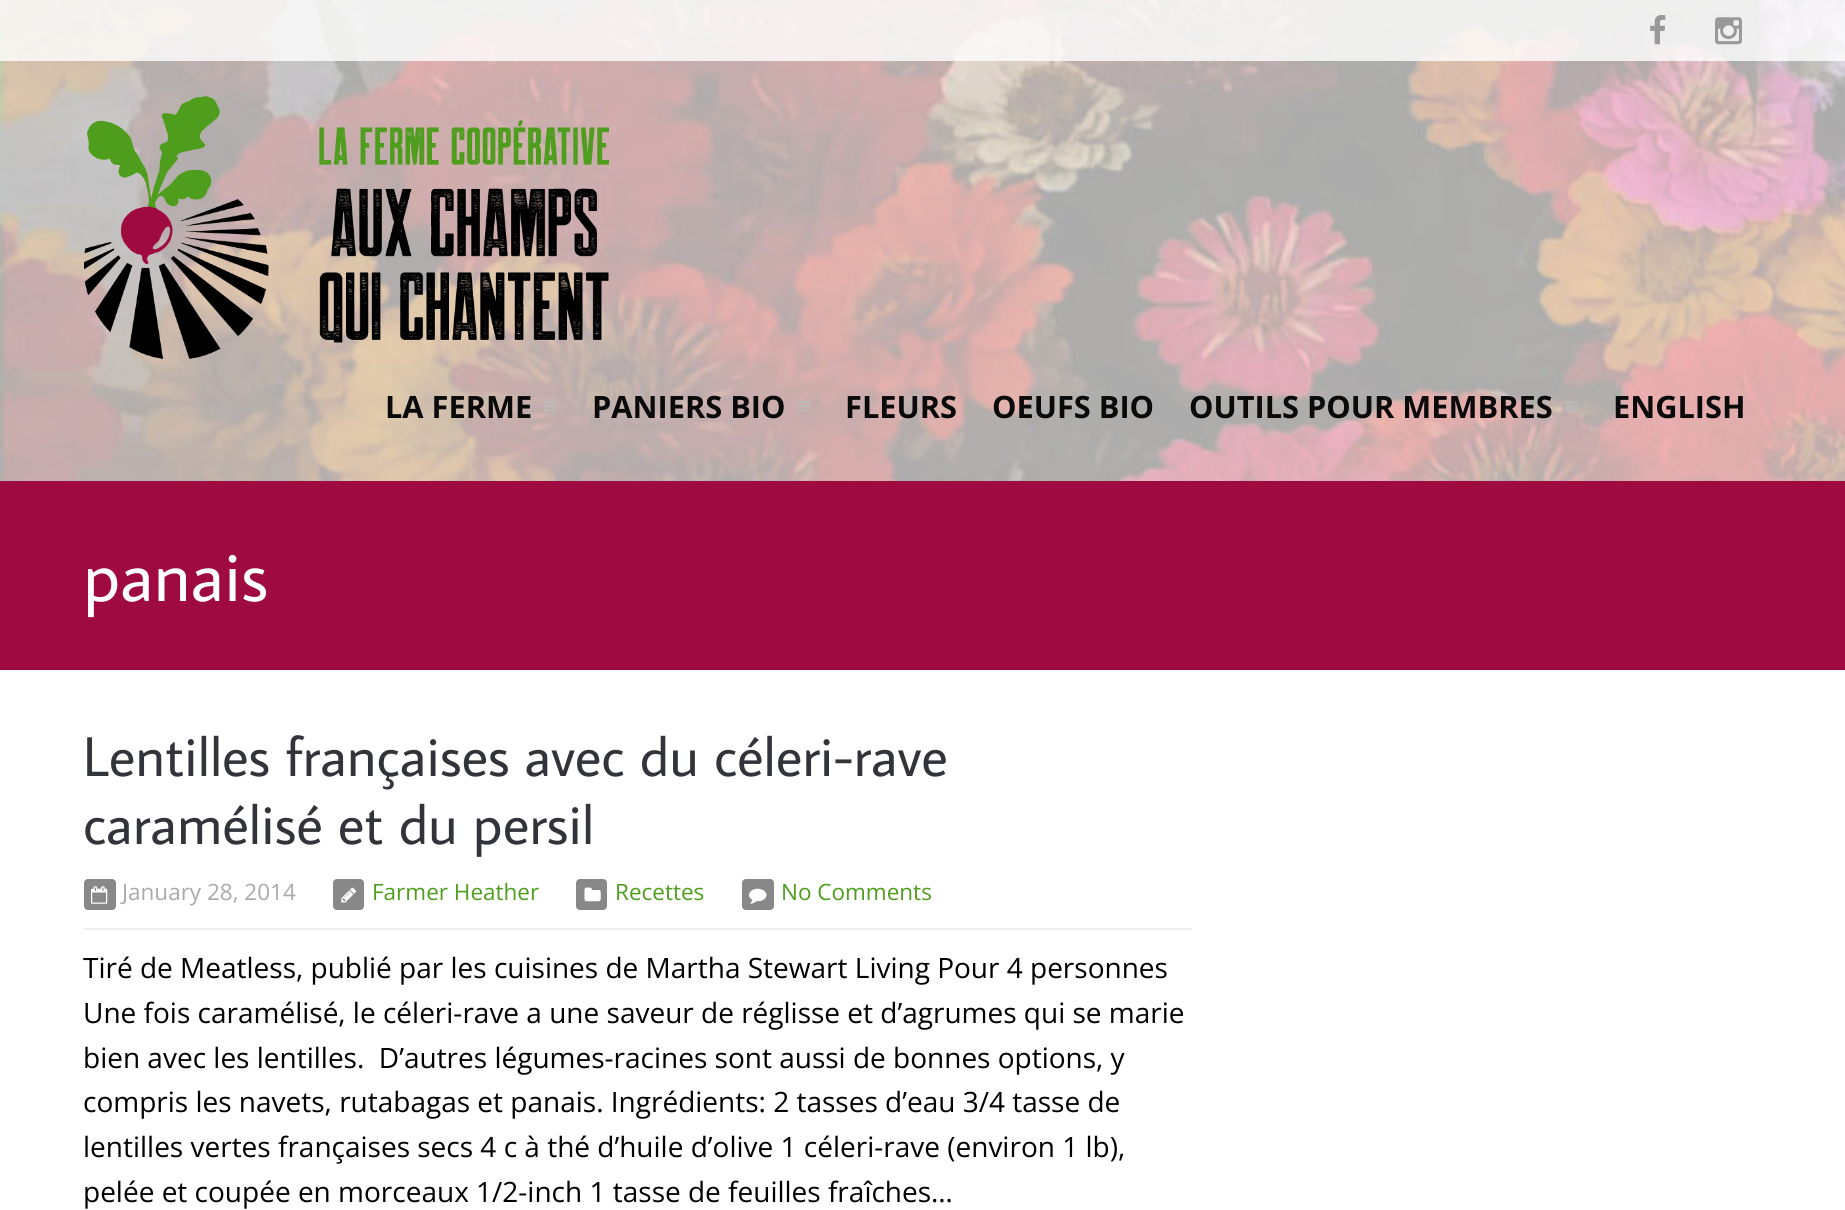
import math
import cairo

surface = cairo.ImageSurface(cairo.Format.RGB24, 1845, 1210)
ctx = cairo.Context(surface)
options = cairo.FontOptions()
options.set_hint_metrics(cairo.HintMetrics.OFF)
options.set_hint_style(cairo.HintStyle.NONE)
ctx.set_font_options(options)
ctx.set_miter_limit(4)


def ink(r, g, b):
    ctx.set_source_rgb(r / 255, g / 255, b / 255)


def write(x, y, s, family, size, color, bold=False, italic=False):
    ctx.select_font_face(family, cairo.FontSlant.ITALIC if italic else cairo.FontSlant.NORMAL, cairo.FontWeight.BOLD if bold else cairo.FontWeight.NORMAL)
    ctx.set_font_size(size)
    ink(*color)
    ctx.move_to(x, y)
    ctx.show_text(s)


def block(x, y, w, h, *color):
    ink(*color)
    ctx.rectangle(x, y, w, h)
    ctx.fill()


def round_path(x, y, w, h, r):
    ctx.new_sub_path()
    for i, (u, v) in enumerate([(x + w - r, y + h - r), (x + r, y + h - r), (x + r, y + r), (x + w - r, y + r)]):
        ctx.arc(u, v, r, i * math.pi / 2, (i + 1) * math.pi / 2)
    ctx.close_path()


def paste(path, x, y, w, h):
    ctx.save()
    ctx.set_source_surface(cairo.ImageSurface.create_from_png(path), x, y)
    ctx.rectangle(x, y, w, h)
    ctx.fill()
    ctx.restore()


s1 = dict(family="Open Sans", size=30.75, color=(10, 10, 10), bold=True)
s2 = dict(family="Average Sans", size=70, color=(255, 255, 255))
s3 = dict(family="Average Sans", size=56, color=(51, 51, 58))
s4 = dict(family="Open Sans", size=22.5, color=(170, 170, 170))
s5 = dict(family="Open Sans", size=22.5, color=(78, 157, 29))
s6 = dict(family="Open Sans", size=28, color=(0, 0, 0))

ink(255, 255, 255)
ctx.paint()
paste("pic1.png", 0, 0, 1845, 481)
ctx.set_source_rgba(1, 1, 1, 0.8)
ctx.rectangle(0, 0, 1845, 61)
ctx.fill()
paste("pic2.png", 1650, 15, 16, 30)
paste("pic3.png", 1715, 17, 27, 28)
paste("pic4.png", 84, 96, 525, 263)
write(385, 418, "LA FERME", **s1)
paste("pic5.png", 544, 401, 12, 11)
write(592, 418, "PANIERS BIO", **s1)
paste("pic6.png", 798, 401, 12, 11)
write(845, 418, "FLEURS", **s1)
write(992, 418, "OEUFS BIO", **s1)
write(1189, 418, "OUTILS POUR MEMBRES", **s1)
paste("pic7.png", 1566, 401, 12, 11)
write(1613, 418, "ENGLISH", **s1)
block(0, 481, 1845, 189, 159, 10, 64)
write(83, 601, "panais", **s2)
write(83, 776, "Lentilles françaises avec du céleri-rave", **s3)
write(83, 844, "caramélisé et du persil", **s3)
block(84, 928, 1108, 2, 238, 238, 238)
ink(136, 136, 136)
round_path(84, 879, 32, 31, 4)
ctx.fill()
paste("pic8.png", 91, 886, 17, 18)
write(122, 900, "January 28, 2014", **s4)
ink(136, 136, 136)
round_path(333, 879, 31, 31, 4)
ctx.fill()
paste("pic9.png", 341, 887, 15, 16)
write(372, 900, "Farmer Heather", **s5)
ink(136, 136, 136)
round_path(576, 879, 31, 31, 4)
ctx.fill()
paste("pic10.png", 584, 887, 17, 15)
write(615, 900, "Recettes", **s5)
ink(136, 136, 136)
round_path(742, 879, 32, 31, 4)
ctx.fill()
paste("pic11.png", 749, 888, 18, 16)
write(781, 900, "No Comments", **s5)
write(83, 978, "Tiré de Meatless, publié par les cuisines de Martha Stewart Living Pour 4 personnes", **s6)
write(83, 1023, "Une fois caramélisé, le céleri-rave a une saveur de réglisse et d’agrumes qui se marie", **s6)
write(83, 1068, "bien avec les lentilles.  D’autres légumes-racines sont aussi de bonnes options, y", **s6)
write(83, 1112, "compris les navets, rutabagas et panais. Ingrédients: 2 tasses d’eau 3/4 tasse de", **s6)
write(83, 1157, "lentilles vertes françaises secs 4 c à thé d’huile d’olive 1 céleri-rave (environ 1 lb),", **s6)
write(83, 1202, "pelée et coupée en morceaux 1/2-inch 1 tasse de feuilles fraîches…", **s6)
surface.write_to_png("screenshot.png")
